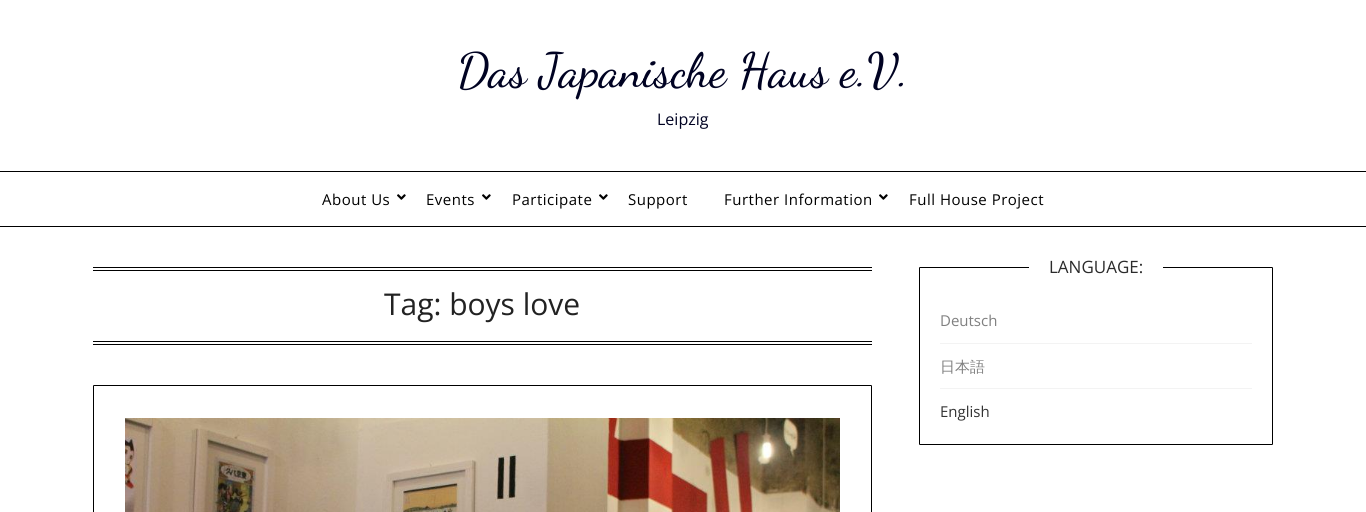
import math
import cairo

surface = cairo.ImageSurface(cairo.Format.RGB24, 1366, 512)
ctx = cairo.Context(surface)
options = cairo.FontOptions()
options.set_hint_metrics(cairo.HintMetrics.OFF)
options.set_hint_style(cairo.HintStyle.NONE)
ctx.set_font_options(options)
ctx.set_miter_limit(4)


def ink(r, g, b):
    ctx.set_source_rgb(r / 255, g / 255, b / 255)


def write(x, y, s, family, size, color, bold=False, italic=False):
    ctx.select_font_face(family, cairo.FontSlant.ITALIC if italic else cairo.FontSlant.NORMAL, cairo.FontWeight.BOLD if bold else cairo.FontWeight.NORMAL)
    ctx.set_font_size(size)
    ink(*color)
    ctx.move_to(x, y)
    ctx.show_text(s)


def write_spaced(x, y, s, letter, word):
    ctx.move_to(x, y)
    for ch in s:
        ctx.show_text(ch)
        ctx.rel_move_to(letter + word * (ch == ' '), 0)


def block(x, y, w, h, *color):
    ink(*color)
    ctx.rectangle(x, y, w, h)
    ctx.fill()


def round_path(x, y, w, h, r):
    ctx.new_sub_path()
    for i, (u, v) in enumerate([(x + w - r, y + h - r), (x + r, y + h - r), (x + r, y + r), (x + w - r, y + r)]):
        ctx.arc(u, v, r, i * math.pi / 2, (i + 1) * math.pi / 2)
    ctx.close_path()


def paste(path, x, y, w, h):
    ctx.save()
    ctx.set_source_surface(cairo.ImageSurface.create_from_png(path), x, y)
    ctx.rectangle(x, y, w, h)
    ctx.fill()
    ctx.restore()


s1 = dict(family="Dancing Script Medium", size=48, color=(0, 2, 34))
s2 = dict(family="Open Sans", size=16, color=(0, 2, 34))
s3 = dict(family="Open Sans", size=30, color=(34, 34, 34))
s4 = dict(family="Open Sans", size=17, color=(43, 43, 43))
s5 = dict(family="Open Sans", size=15, color=(128, 128, 128))
s6 = dict(family="WenQuanYi Zen Hei Medium", size=15, color=(128, 128, 128))
s7 = dict(family="Open Sans", size=15, color=(51, 51, 51))

ink(255, 255, 255)
ctx.paint()
write(457, 86, "Das Japanische Haus e.V.", **s1)
write(657, 125, "Leipzig", **s2)
block(0, 171, 1366, 1, 0, 0, 0)
block(0, 226, 1366, 1, 0, 0, 0)
ctx.set_font_size(15)
write_spaced(322, 205, "About Us", 0.5, 0)
paste("pic1.png", 397, 194, 9, 6)
write_spaced(426, 205, "Events", 0.5, 0)
paste("pic1.png", 482, 194, 9, 6)
write_spaced(512, 205, "Participate", 0.5, 0)
paste("pic1.png", 599, 194, 9, 6)
write_spaced(628, 205, "Support", 0.5, 0)
write_spaced(724, 205, "Further Information", 0.5, 0)
paste("pic1.png", 879, 194, 9, 6)
write_spaced(909, 205, "Full House Project", 0.5, 0)
block(93, 267, 779, 1, 0, 0, 0)
block(93, 270, 779, 1, 0, 0, 0)
block(93, 341, 779, 1, 0, 0, 0)
block(93, 344, 779, 1, 0, 0, 0)
write(384, 315, "Tag: boys love", **s3)
round_path(93.5, 385.5, 778, 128, 0.5)
ink(0, 0, 0)
ctx.set_line_width(1)
ctx.stroke()
paste("pic2.png", 125, 418, 715, 94)
round_path(919.5, 267.5, 353, 177, 0.5)
ctx.stroke()
block(1029, 267, 134, 1, 255, 255, 255)
write(1049, 273, "LANGUAGE:", **s4)
block(940, 343, 312, 1, 243, 243, 243)
write(940, 326, "Deutsch", **s5)
block(940, 388, 312, 1, 243, 243, 243)
write(940, 372, "日本語", **s6)
write(940, 417, "English", **s7)
surface.write_to_png("screenshot.png")
